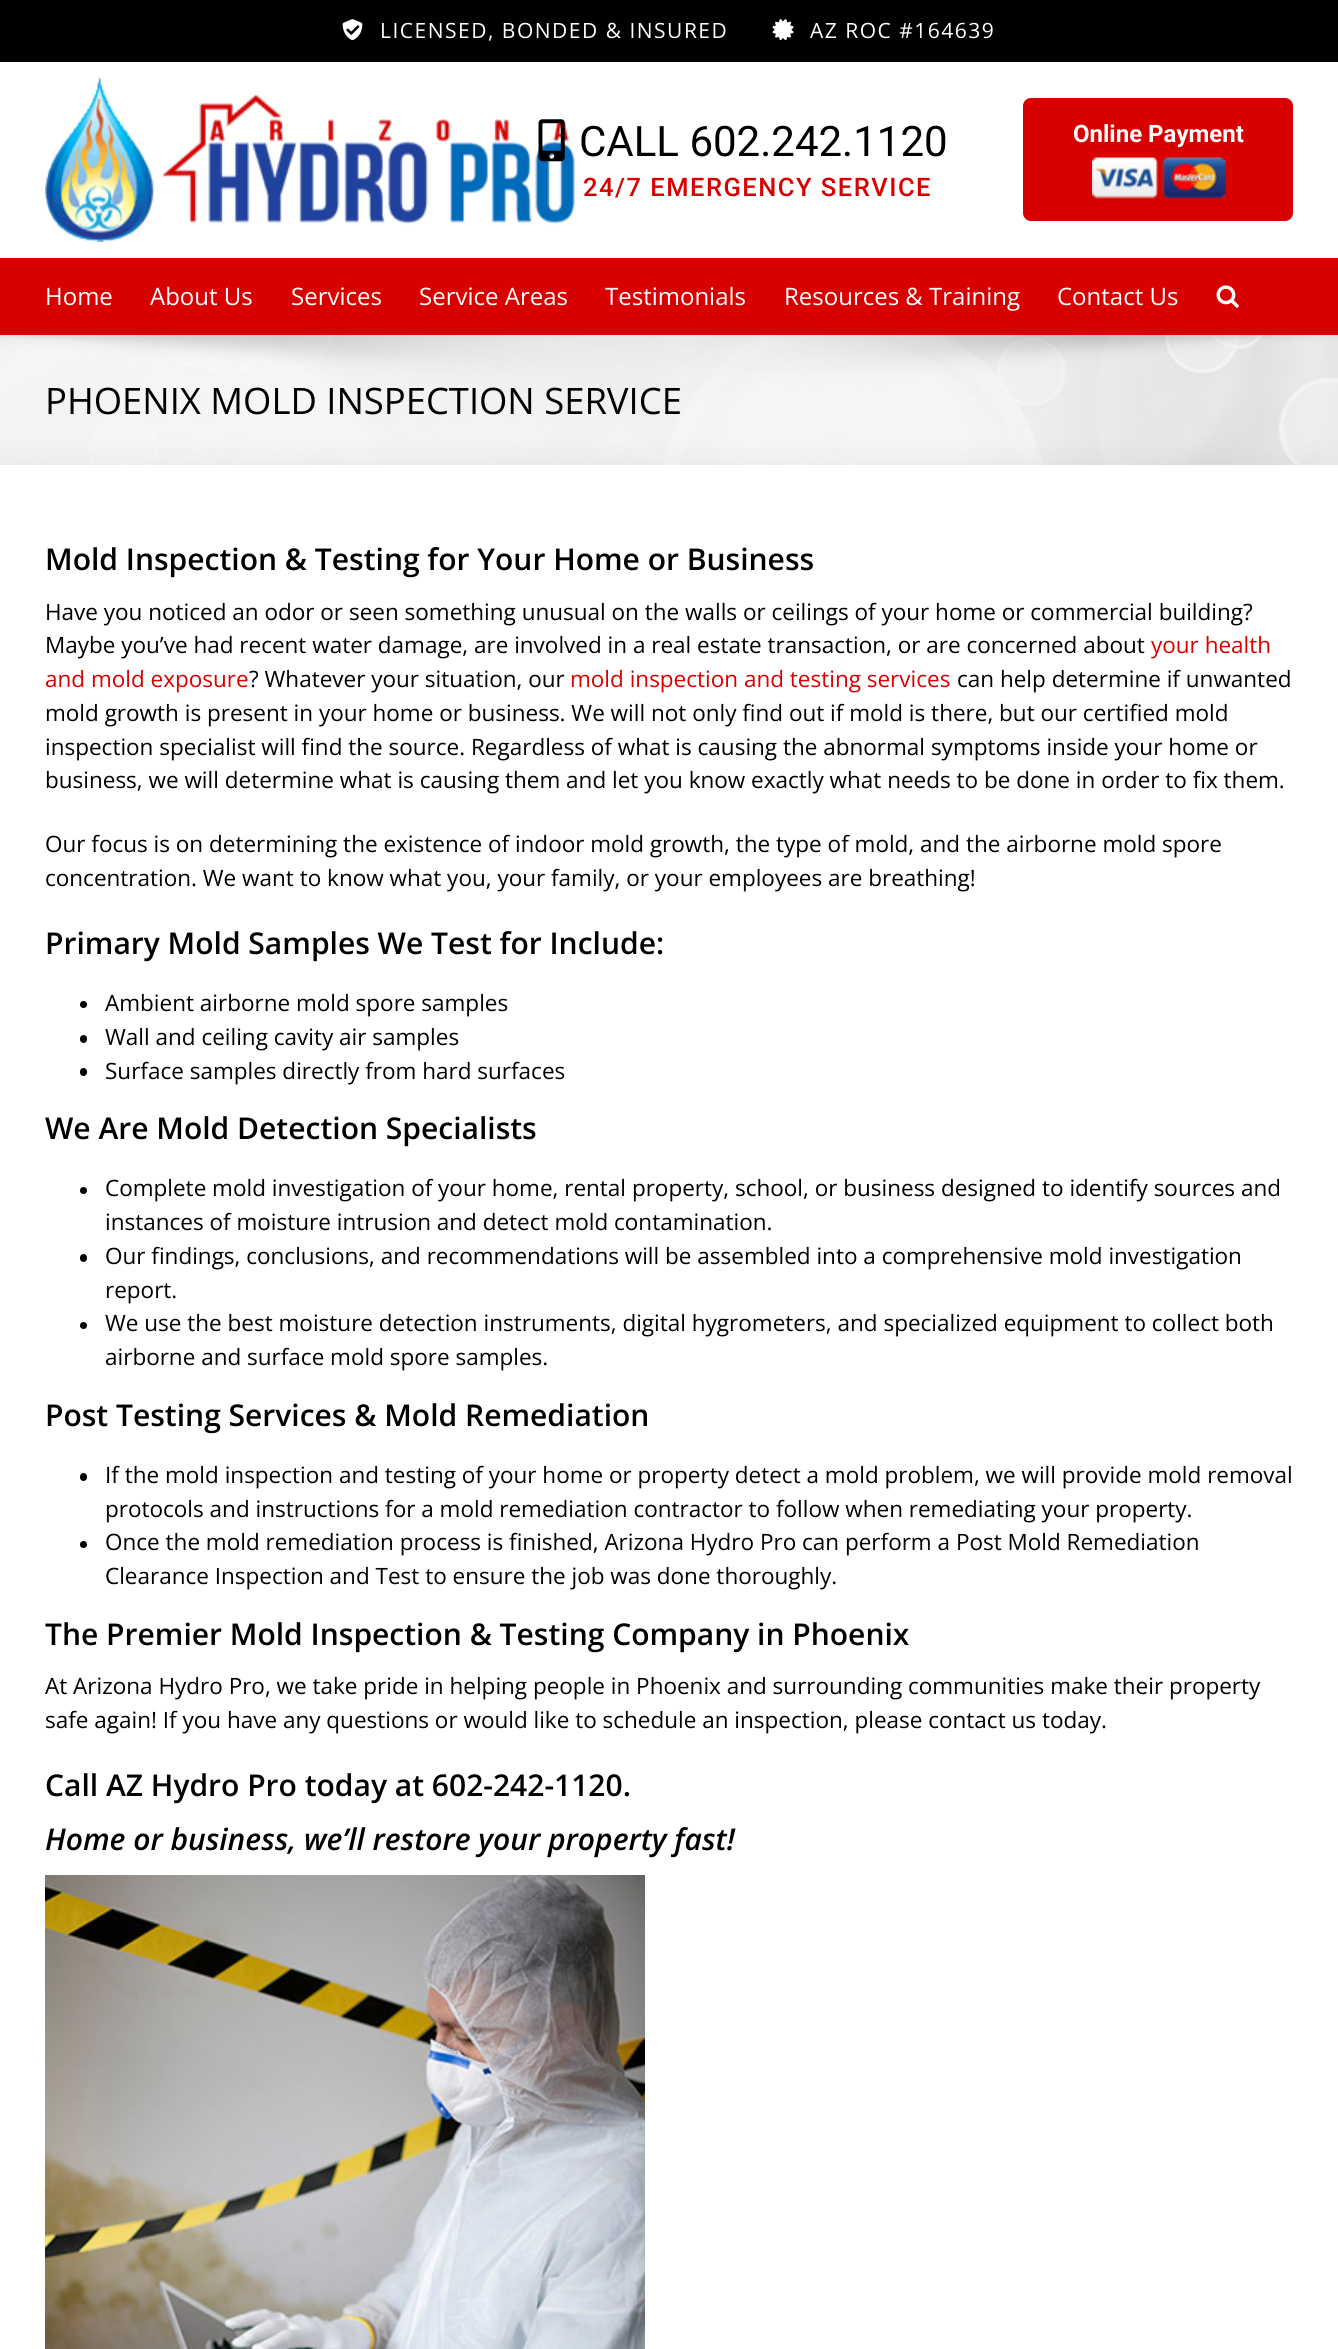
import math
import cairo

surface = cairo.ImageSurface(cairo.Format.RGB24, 1338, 2349)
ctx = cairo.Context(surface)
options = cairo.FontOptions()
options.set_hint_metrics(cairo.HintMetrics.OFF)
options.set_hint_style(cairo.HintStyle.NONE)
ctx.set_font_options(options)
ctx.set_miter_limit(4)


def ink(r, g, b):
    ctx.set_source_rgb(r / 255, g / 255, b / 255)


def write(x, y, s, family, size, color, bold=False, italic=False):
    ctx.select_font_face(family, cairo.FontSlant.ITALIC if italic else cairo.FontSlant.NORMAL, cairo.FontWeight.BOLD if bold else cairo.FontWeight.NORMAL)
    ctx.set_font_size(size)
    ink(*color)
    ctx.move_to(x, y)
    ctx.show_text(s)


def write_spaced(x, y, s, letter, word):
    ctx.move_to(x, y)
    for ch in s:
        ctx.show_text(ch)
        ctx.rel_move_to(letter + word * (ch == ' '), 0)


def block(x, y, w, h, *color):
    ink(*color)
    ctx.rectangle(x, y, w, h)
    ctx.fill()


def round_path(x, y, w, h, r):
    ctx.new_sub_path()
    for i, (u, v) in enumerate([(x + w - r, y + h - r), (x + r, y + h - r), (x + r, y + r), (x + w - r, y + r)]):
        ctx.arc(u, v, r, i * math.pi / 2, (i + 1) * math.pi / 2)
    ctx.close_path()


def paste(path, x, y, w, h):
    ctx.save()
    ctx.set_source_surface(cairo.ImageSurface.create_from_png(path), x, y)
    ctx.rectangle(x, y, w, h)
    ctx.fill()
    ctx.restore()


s1 = dict(family="Roboto", size=42, color=(0, 0, 0))
s2 = dict(family="Roboto", size=24, color=(255, 255, 255), bold=True)
s3 = dict(family="Open Sans", size=24, color=(255, 255, 255))
s4 = dict(family="Open Sans", size=36.4, color=(0, 0, 0))
s5 = dict(family="Open Sans SemiBold", size=30, color=(0, 0, 0))
s6 = dict(family="Open Sans", size=22.5, color=(0, 0, 0))
s7 = dict(family="Open Sans", size=22.5, color=(217, 0, 0))
s8 = dict(family="Open Sans SemiBold", size=30, color=(0, 0, 0), italic=True)

ink(255, 255, 255)
ctx.paint()
block(0, 0, 1338, 62, 0, 0, 0)
paste("pic1.png", 342, 19, 21, 22)
ctx.select_font_face("Open Sans")
ctx.set_font_size(21)
ink(255, 255, 255)
write_spaced(380, 38, "LICENSED, BONDED & INSURED", 1.5, 0)
paste("pic2.png", 772, 19, 22, 22)
write_spaced(810, 38, "AZ ROC #164639", 1.5, 0)
paste("pic3.png", 45, 77, 530, 165)
paste("pic4.png", 538, 119, 27, 43)
write(579, 156, "CALL 602.242.1120", **s1)
ctx.select_font_face("Roboto Medium")
ctx.set_font_size(25.5)
ink(217, 0, 0)
write_spaced(583, 196, "24/7 EMERGENCY SERVICE", 1.5, 0)
round_path(1023, 98, 270, 123, 8)
ctx.fill()
write(1073, 142, "Online Payment", **s2)
paste("pic5.png", 1092, 157, 134, 42)
block(0, 258, 1338, 77, 217, 0, 0)
write(45, 305, "Home", **s3)
write(150, 305, "About Us", **s3)
write(291, 305, "Services", **s3)
write(419, 305, "Service Areas", **s3)
write(605, 305, "Testimonials", **s3)
write(784, 305, "Resources & Training", **s3)
write(1057, 305, "Contact Us", **s3)
paste("pic6.png", 1216, 285, 23, 23)
block(0, 335, 1338, 130, 246, 246, 246)
paste("pic7.png", 0, 335, 1338, 130)
write(45, 414, "PHOENIX MOLD INSPECTION SERVICE", **s4)
write(45, 570, "Mold Inspection & Testing for Your Home or Business", **s5)
write(45, 620, "Have you noticed an odor or seen something unusual on the walls or ceilings of your home or commercial building?", **s6)
write(45, 653, "Maybe you’ve had recent water damage, are involved in a real estate transaction, or are concerned about", **s6)
write(1151, 653, "your health", **s7)
write(45, 687, "and mold exposure", **s7)
write(249, 687, "? Whatever your situation, our", **s6)
write(570, 687, "mold inspection and testing services", **s7)
write(957, 687, "can help determine if unwanted", **s6)
write(45, 721, "mold growth is present in your home or business. We will not only find out if mold is there, but our certified mold", **s6)
write(45, 755, "inspection specialist will find the source. Regardless of what is causing the abnormal symptoms inside your home or", **s6)
write(45, 788, "business, we will determine what is causing them and let you know exactly what needs to be done in order to fix them.", **s6)
write(45, 852, "Our focus is on determining the existence of indoor mold growth, the type of mold, and the airborne mold spore", **s6)
write(45, 886, "concentration. We want to know what you, your family, or your employees are breathing!", **s6)
write(45, 954, "Primary Mold Samples We Test for Include:", **s5)
ctx.new_path()
ctx.arc(83.5, 1004.5, 3.5, 0, 2 * math.pi)
ctx.fill()
write(105, 1011, "Ambient airborne mold spore samples", **s6)
round_path(80, 1035, 7, 8, 3.5)
ctx.fill()
write(105, 1045, "Wall and ceiling cavity air samples", **s6)
round_path(80, 1068, 7, 8, 3.5)
ctx.fill()
write(105, 1079, "Surface samples directly from hard surfaces", **s6)
write(45, 1139, "We Are Mold Detection Specialists", **s5)
ctx.new_path()
ctx.arc(83.5, 1190.5, 3.5, 0, 2 * math.pi)
ctx.fill()
write(105, 1196, "Complete mold investigation of your home, rental property, school, or business designed to identify sources and", **s6)
write(105, 1230, "instances of moisture intrusion and detect mold contamination.", **s6)
round_path(80, 1254, 7, 8, 3.5)
ctx.fill()
write(105, 1264, "Our findings, conclusions, and recommendations will be assembled into a comprehensive mold investigation", **s6)
write(105, 1298, "report.", **s6)
ctx.new_path()
ctx.arc(83.5, 1325.5, 3.5, 0, 2 * math.pi)
ctx.fill()
write(105, 1331, "We use the best moisture detection instruments, digital hygrometers, and specialized equipment to collect both", **s6)
write(105, 1365, "airborne and surface mold spore samples.", **s6)
write(45, 1426, "Post Testing Services & Mold Remediation", **s5)
round_path(80, 1473, 7, 8, 3.5)
ctx.fill()
write(105, 1483, "If the mold inspection and testing of your home or property detect a mold problem, we will provide mold removal", **s6)
write(105, 1517, "protocols and instructions for a mold remediation contractor to follow when remediating your property.", **s6)
ctx.new_path()
ctx.arc(83.5, 1544.5, 3.5, 0, 2 * math.pi)
ctx.fill()
write(105, 1550, "Once the mold remediation process is finished, Arizona Hydro Pro can perform a Post Mold Remediation", **s6)
write(105, 1584, "Clearance Inspection and Test to ensure the job was done thoroughly.", **s6)
write(45, 1645, "The Premier Mold Inspection & Testing Company in Phoenix", **s5)
write(45, 1694, "At Arizona Hydro Pro, we take pride in helping people in Phoenix and surrounding communities make their property", **s6)
write(45, 1728, "safe again! If you have any questions or would like to schedule an inspection, please contact us today.", **s6)
write(45, 1796, "Call AZ Hydro Pro today at 602-242-1120.", **s5)
write(45, 1850, "Home or business, we’ll restore your property fast!", **s8)
paste("pic8.png", 45, 1875, 600, 474)
surface.write_to_png("screenshot.png")
